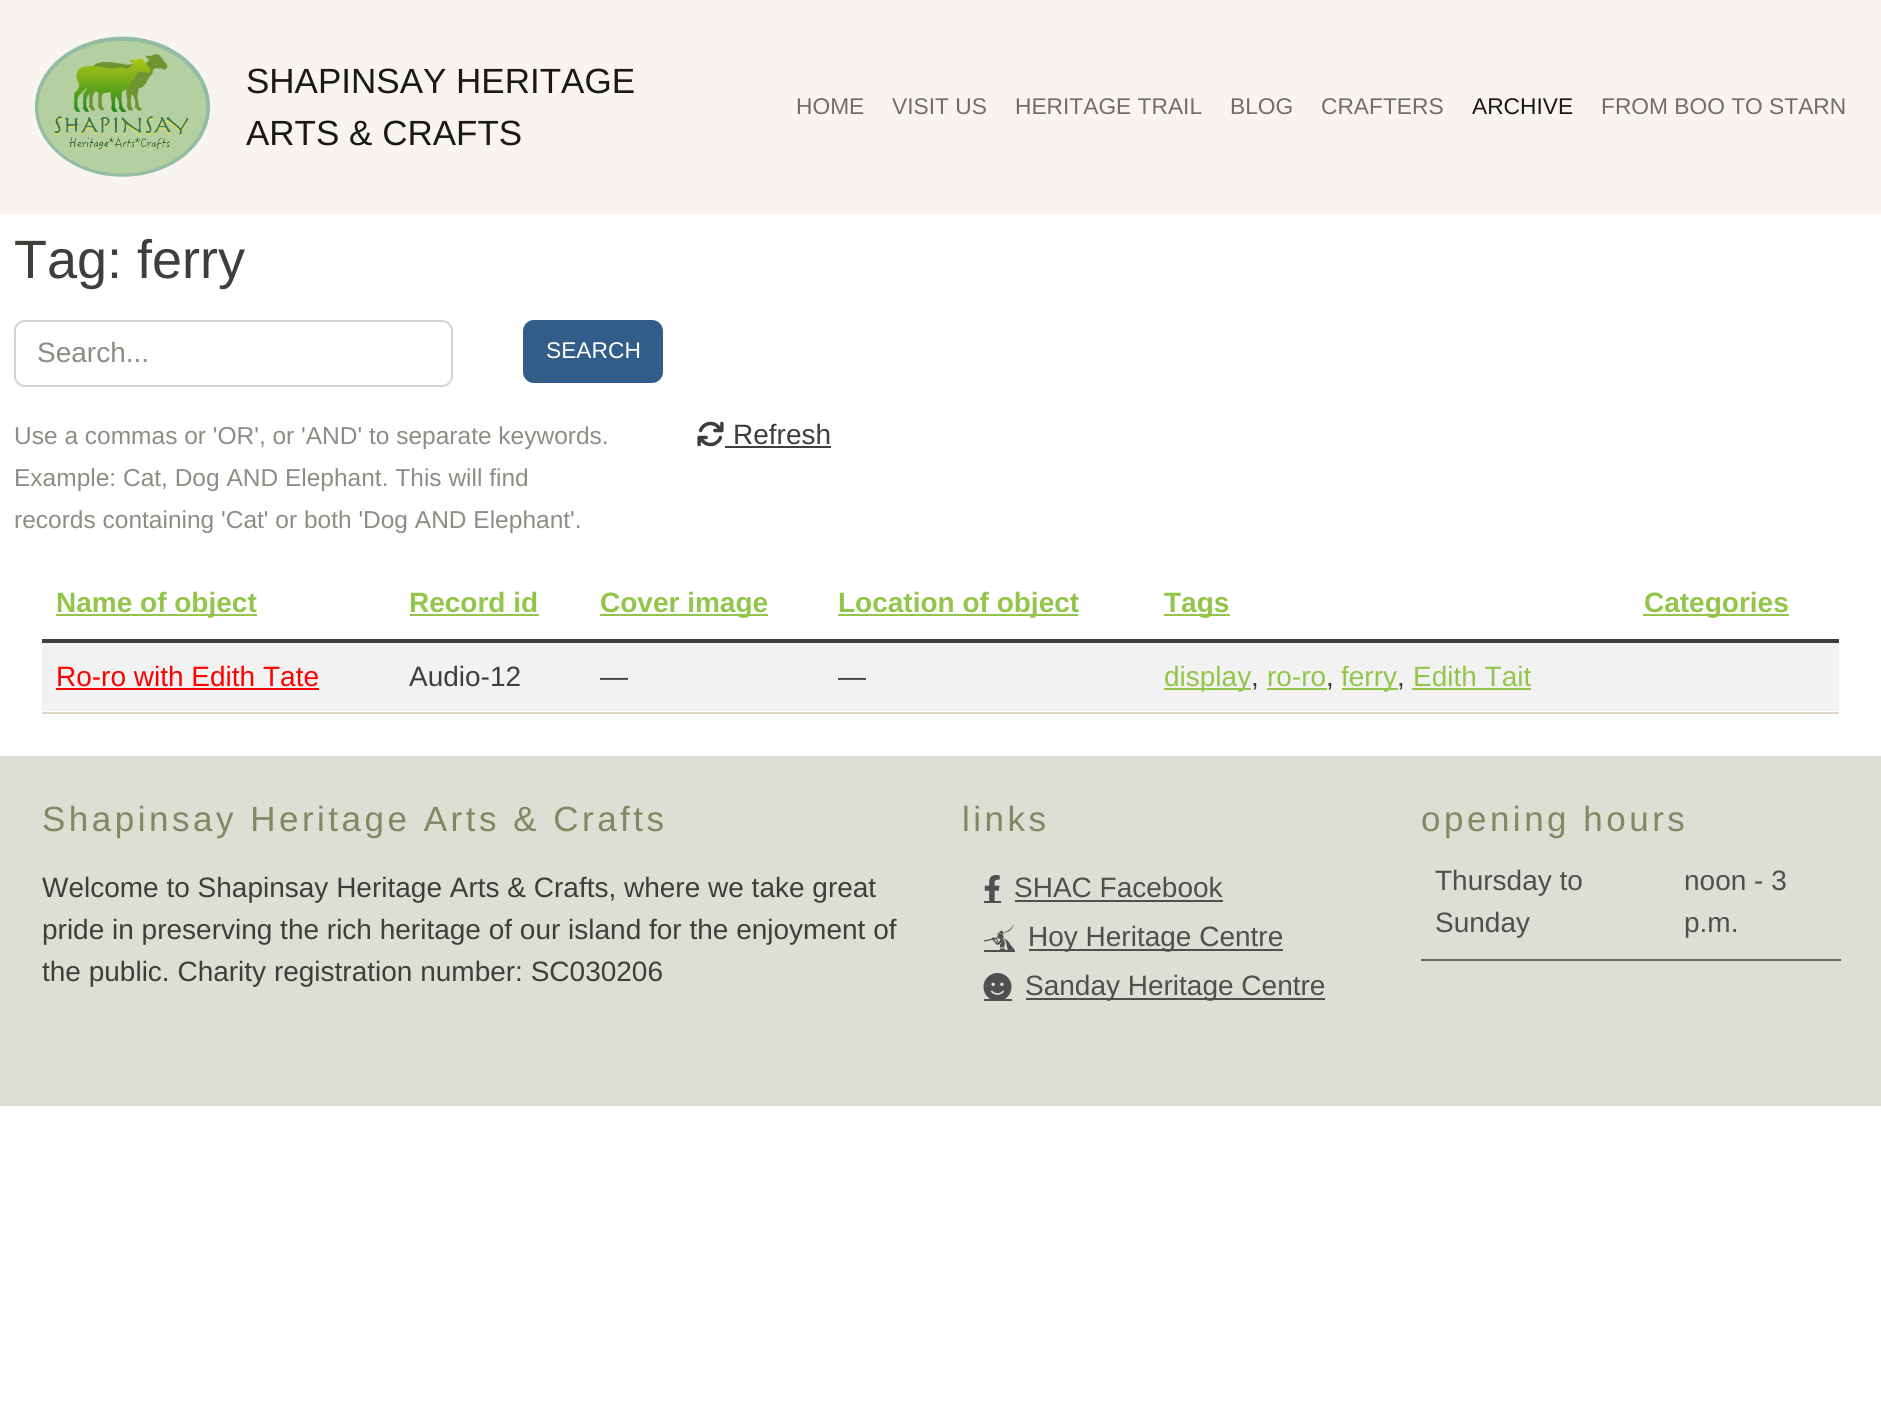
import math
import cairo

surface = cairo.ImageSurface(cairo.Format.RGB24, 1881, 1422)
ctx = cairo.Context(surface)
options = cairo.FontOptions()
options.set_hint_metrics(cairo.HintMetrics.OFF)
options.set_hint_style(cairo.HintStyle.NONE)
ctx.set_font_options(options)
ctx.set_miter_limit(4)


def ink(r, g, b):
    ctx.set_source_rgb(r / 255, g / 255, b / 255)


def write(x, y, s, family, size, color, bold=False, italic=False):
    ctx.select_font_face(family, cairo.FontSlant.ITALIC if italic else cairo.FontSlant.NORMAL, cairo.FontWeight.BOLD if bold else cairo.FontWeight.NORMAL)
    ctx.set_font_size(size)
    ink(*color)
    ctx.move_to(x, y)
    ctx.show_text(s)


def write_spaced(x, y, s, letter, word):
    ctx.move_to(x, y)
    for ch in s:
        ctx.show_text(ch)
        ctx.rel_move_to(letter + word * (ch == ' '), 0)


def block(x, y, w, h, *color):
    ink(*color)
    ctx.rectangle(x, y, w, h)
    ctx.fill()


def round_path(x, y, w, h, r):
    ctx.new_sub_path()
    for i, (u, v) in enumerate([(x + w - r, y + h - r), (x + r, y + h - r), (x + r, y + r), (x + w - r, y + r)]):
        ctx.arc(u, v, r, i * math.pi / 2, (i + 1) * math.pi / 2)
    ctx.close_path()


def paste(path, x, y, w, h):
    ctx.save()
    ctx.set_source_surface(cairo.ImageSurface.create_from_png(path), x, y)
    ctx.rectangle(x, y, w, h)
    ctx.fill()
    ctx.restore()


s1 = dict(family="Liberation Sans", size=35, color=(25, 25, 24))
s2 = dict(family="Liberation Sans", size=22.75, color=(112, 110, 108))
s3 = dict(family="Liberation Sans", size=22.75, color=(25, 25, 24))
s4 = dict(family="Liberation Sans", size=54, color=(62, 63, 58))
s5 = dict(family="Liberation Sans", size=28, color=(142, 140, 132))
s6 = dict(family="Liberation Sans", size=22.75, color=(255, 255, 255))
s7 = dict(family="Liberation Sans", size=24.5, color=(142, 140, 132))
s8 = dict(family="Liberation Sans", size=28, color=(62, 63, 58))
s9 = dict(family="Liberation Sans", size=28, color=(147, 197, 75), bold=True)
s10 = dict(family="Liberation Sans", size=28, color=(255, 0, 0))
s11 = dict(family="Liberation Sans", size=28, color=(147, 197, 75))
s12 = dict(family="Liberation Sans", size=28, color=(79, 79, 79))

ink(255, 255, 255)
ctx.paint()
block(0, 0, 1881, 214, 248, 245, 240)
paste("pic1.png", 35, 36, 175, 141)
write(246, 93, "SHAPINSAY HERITAGE", **s1)
write(246, 145, "ARTS & CRAFTS", **s1)
write(796, 114, "HOME", **s2)
write(892, 114, "VISIT US", **s2)
write(1015, 114, "HERITAGE TRAIL", **s2)
write(1230, 114, "BLOG", **s2)
write(1321, 114, "CRAFTERS", **s2)
write(1472, 114, "ARCHIVE", **s3)
write(1601, 114, "FROM BOO TO STARN", **s2)
write(14, 278, "Tag: ferry", **s4)
round_path(15, 321, 437, 65, 10)
ink(206, 212, 218)
ctx.stroke()
write(37, 362, "Search...", **s5)
ink(50, 93, 136)
round_path(524, 321, 138, 61, 10)
ctx.fill_preserve()
ctx.stroke()
write(546, 358, "SEARCH", **s6)
write(14, 444, "Use a commas or 'OR', or 'AND' to separate keywords.", **s7)
write(14, 486, "Example: Cat, Dog AND Elephant. This will find", **s7)
write(14, 528, "records containing 'Cat' or both 'Dog AND Elephant'.", **s7)
paste("pic2.png", 697, 421, 27, 26)
write(733, 444, "Refresh", **s8)
block(725, 446, 106, 2, 62, 63, 58)
block(56, 614, 201, 2, 147, 197, 75)
write(56, 612, "Name of object", **s9)
write(409, 612, "Record id", **s9)
block(410, 614, 129, 2, 147, 197, 75)
block(600, 614, 168, 2, 147, 197, 75)
write(600, 612, "Cover image", **s9)
block(838, 614, 240, 2, 147, 197, 75)
write(838, 612, "Location of object", **s9)
block(1164, 614, 66, 2, 147, 197, 75)
write(1164, 612, "Tags", **s9)
block(1643, 614, 146, 2, 147, 197, 75)
write(1644, 612, "Categories", **s9)
block(42, 639, 1797, 4, 62, 63, 58)
block(42, 643, 1797, 68, 242, 242, 242)
write(56, 686, "Ro-ro with Edith Tate", **s10)
block(56, 688, 263, 2, 255, 0, 0)
write(409, 686, "Audio-12", **s8)
write(600, 686, "—", **s8)
write(838, 686, "—", **s8)
block(1164, 688, 87, 2, 147, 197, 75)
write(1164, 686, "display", **s11)
write(1251, 686, ",", **s8)
write(1267, 686, "ro-ro", **s11)
block(1267, 688, 60, 2, 147, 197, 75)
write(1326, 686, ",", **s8)
block(1342, 688, 56, 2, 147, 197, 75)
write(1341, 686, "ferry", **s11)
write(1397, 686, ",", **s8)
write(1413, 686, "Edith Tait", **s11)
block(1412, 688, 119, 2, 147, 197, 75)
block(42, 712, 1797, 2, 223, 215, 202)
block(0, 756, 1881, 350, 222, 222, 213)
ctx.set_font_size(35)
ink(129, 137, 99)
write_spaced(42, 831, "Shapinsay Heritage Arts & Crafts", 3.5, 0)
write(42, 897, "Welcome to Shapinsay Heritage Arts & Crafts, where we take great", **s8)
write(42, 939, "pride in preserving the rich heritage of our island for the enjoyment of", **s8)
write(42, 981, "the public. Charity registration number: SC030206", **s8)
ctx.set_font_size(35)
ink(129, 137, 99)
write_spaced(962, 831, "links", 3.5, 0)
paste("pic3.png", 984, 875, 16, 26)
block(984, 901, 17, 2, 79, 79, 79)
write(1014, 897, "SHAC Facebook", **s12)
block(1015, 900, 208, 2, 79, 79, 79)
paste("pic4.png", 984, 924, 31, 26)
block(984, 950, 31, 2, 79, 79, 79)
block(1029, 949, 254, 2, 79, 79, 79)
write(1028, 946, "Hoy Heritage Centre", **s12)
paste("pic5.png", 983, 973, 29, 26)
block(984, 999, 28, 2, 79, 79, 79)
block(1026, 998, 299, 2, 79, 79, 79)
write(1025, 995, "Sanday Heritage Centre", **s12)
ctx.set_font_size(35)
ink(129, 137, 99)
write_spaced(1421, 831, "opening hours", 3.5, 0)
write(1435, 890, "Thursday to", **s12)
write(1435, 932, "Sunday", **s12)
block(1421, 959, 420, 2, 102, 102, 102)
write(1684, 890, "noon - 3", **s12)
write(1684, 932, "p.m.", **s12)
surface.write_to_png("screenshot.png")
